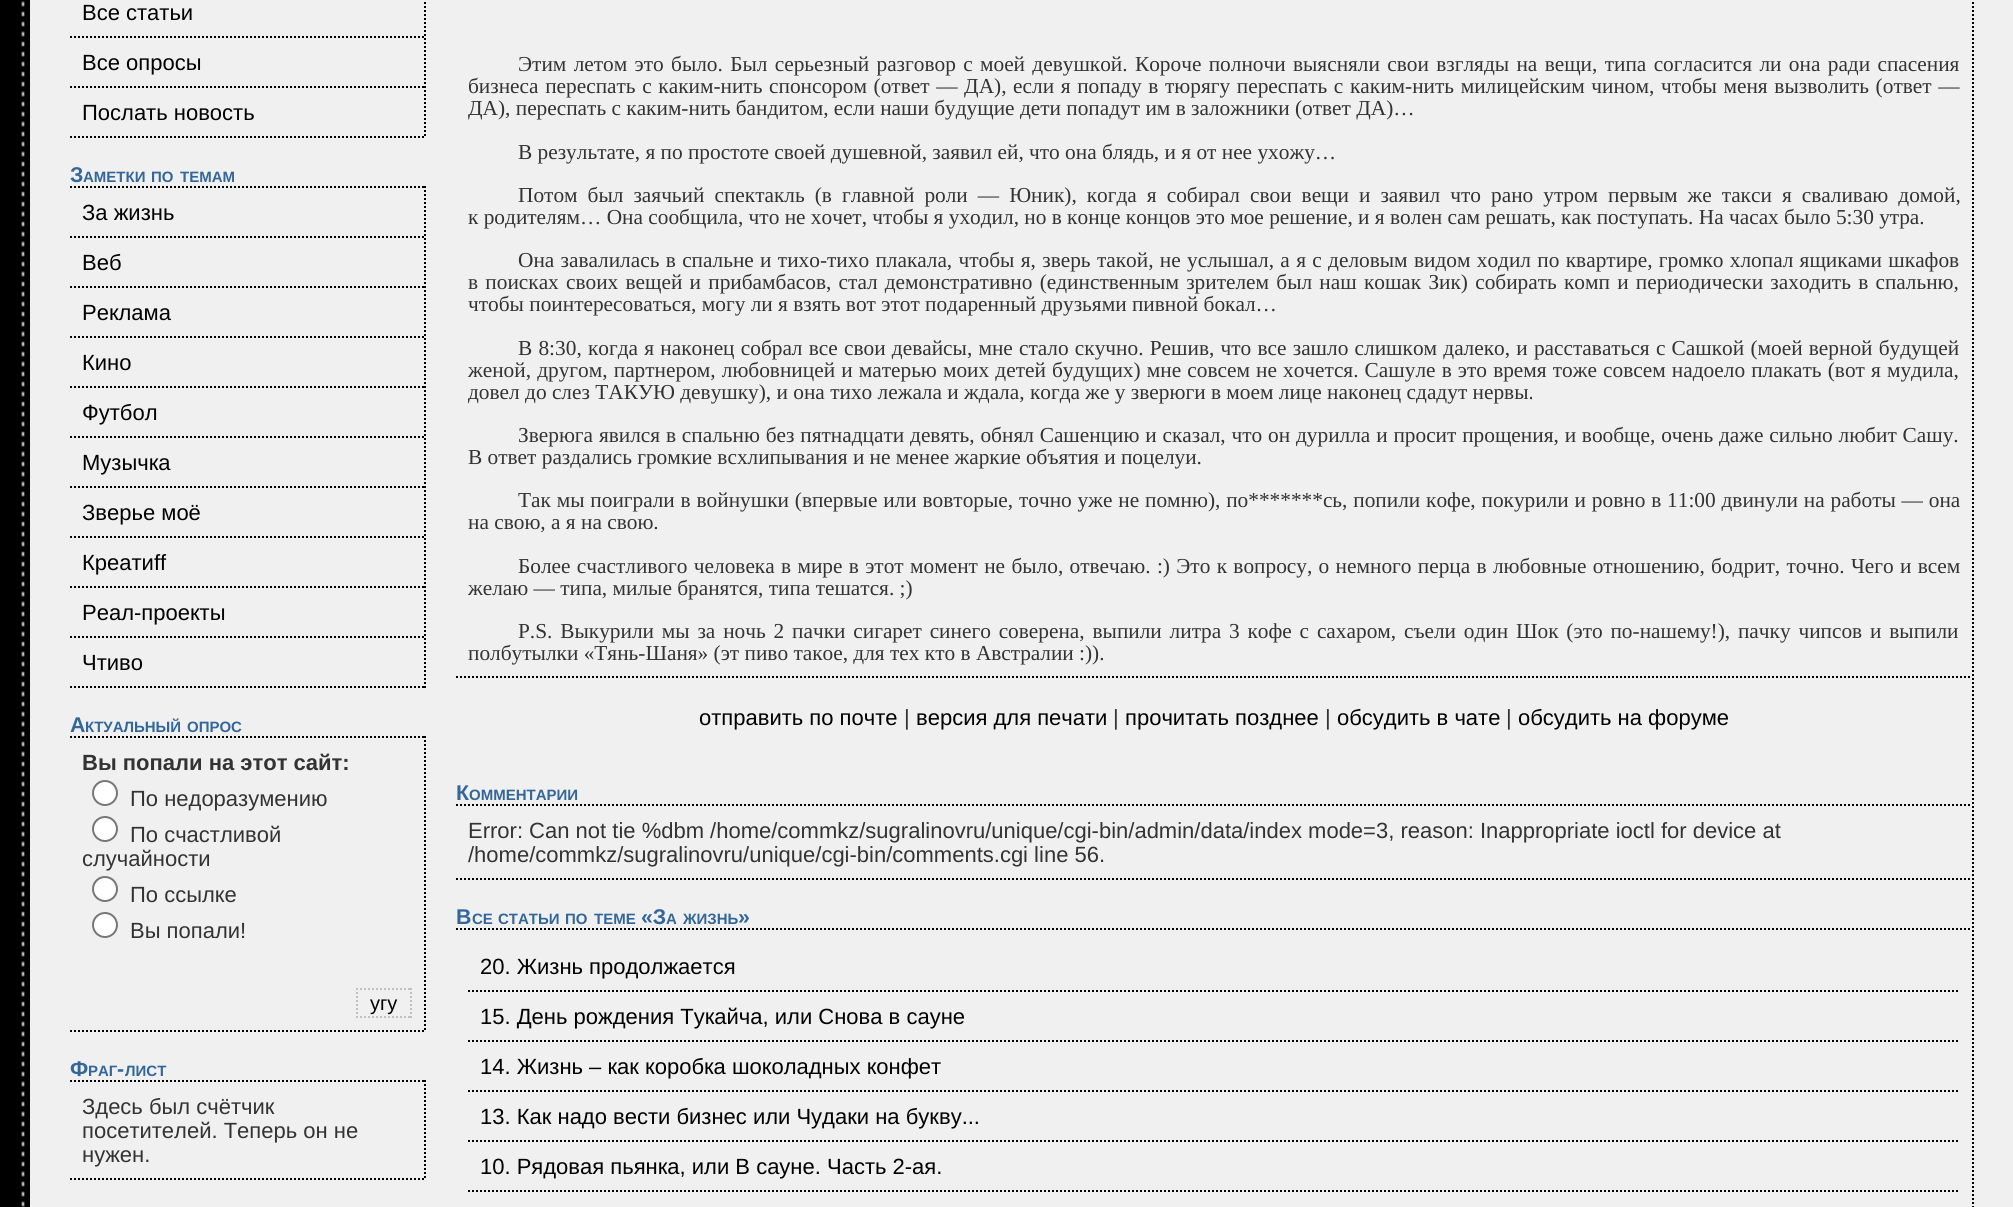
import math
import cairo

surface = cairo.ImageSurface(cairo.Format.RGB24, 2013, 1207)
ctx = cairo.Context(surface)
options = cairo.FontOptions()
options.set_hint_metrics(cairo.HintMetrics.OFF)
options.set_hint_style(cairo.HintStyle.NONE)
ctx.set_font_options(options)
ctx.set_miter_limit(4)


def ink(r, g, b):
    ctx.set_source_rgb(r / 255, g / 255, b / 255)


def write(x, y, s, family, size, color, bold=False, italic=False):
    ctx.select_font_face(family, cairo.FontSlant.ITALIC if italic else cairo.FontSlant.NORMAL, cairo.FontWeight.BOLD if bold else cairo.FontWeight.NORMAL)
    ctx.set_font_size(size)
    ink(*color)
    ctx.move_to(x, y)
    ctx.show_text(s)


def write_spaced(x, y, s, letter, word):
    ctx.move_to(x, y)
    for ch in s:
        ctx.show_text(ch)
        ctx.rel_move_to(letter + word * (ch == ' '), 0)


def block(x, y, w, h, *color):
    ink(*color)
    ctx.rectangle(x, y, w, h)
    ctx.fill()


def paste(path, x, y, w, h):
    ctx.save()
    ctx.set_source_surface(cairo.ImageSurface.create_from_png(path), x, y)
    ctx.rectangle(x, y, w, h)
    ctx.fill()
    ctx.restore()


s1 = dict(family="Liberation Sans", size=22, color=(0, 0, 0))
s2 = dict(family="Liberation Sans", size=21.33, color=(51, 102, 153), bold=True)
s3 = dict(family="Liberation Sans", size=15, color=(51, 102, 153), bold=True)
s4 = dict(family="Liberation Sans", size=22, color=(51, 51, 51), bold=True)
s5 = dict(family="Liberation Sans", size=22, color=(51, 51, 51))
s6 = dict(family="Liberation Sans", size=20, color=(0, 0, 0))
s7 = dict(family="Liberation Serif", size=21.33, color=(51, 51, 51))

ink(240, 240, 240)
ctx.paint()
block(0, 0, 30, 1207, 0, 0, 0)
paste("pic1.png", 21, 1, 4, 1206)
ctx.new_path()
ctx.move_to(425, -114)
ctx.line_to(425, 138)
ctx.set_dash([2, 2])
ctx.stroke()
ctx.new_path()
ctx.move_to(70, 37)
ctx.line_to(424, 37)
ctx.stroke()
write(82, 20, "Все статьи", **s1)
ctx.new_path()
ctx.move_to(70, 87)
ctx.line_to(424, 87)
ctx.stroke()
write(82, 70, "Все опросы", **s1)
ctx.new_path()
ctx.move_to(70, 137)
ctx.line_to(424, 137)
ctx.stroke()
write(82, 120, "Послать новость", **s1)
write(70, 182, "З", **s2)
write(83, 182, "АМЕТКИ", **s3)
write(151, 182, "ПО", **s3)
write(180, 182, "ТЕМАМ", **s3)
ctx.new_path()
ctx.move_to(70, 187)
ctx.line_to(426, 187)
ink(0, 0, 0)
ctx.stroke()
ctx.new_path()
ctx.move_to(425, 186)
ctx.line_to(425, 688)
ctx.stroke()
ctx.new_path()
ctx.move_to(70, 237)
ctx.line_to(424, 237)
ctx.stroke()
write(82, 220, "За жизнь", **s1)
ctx.new_path()
ctx.move_to(70, 287)
ctx.line_to(424, 287)
ctx.stroke()
write(82, 270, "Веб", **s1)
ctx.new_path()
ctx.move_to(70, 337)
ctx.line_to(424, 337)
ctx.stroke()
write(82, 320, "Реклама", **s1)
ctx.new_path()
ctx.move_to(70, 387)
ctx.line_to(424, 387)
ctx.stroke()
write(82, 370, "Кино", **s1)
ctx.new_path()
ctx.move_to(70, 437)
ctx.line_to(424, 437)
ctx.stroke()
write(82, 420, "Футбол", **s1)
ctx.new_path()
ctx.move_to(70, 487)
ctx.line_to(424, 487)
ctx.stroke()
write(82, 470, "Музычка", **s1)
ctx.new_path()
ctx.move_to(70, 537)
ctx.line_to(424, 537)
ctx.stroke()
write(82, 520, "Зверье моё", **s1)
ctx.new_path()
ctx.move_to(70, 587)
ctx.line_to(424, 587)
ctx.stroke()
write(82, 570, "Креатиff", **s1)
ctx.new_path()
ctx.move_to(70, 637)
ctx.line_to(424, 637)
ctx.stroke()
write(82, 620, "Реал-проекты", **s1)
ctx.new_path()
ctx.move_to(70, 687)
ctx.line_to(424, 687)
ctx.stroke()
write(82, 670, "Чтиво", **s1)
write(70, 732, "А", **s2)
write(85, 732, "КТУАЛЬНЫЙ", **s3)
write(187, 732, "ОПРОС", **s3)
ctx.new_path()
ctx.move_to(70, 737)
ctx.line_to(426, 737)
ink(0, 0, 0)
ctx.stroke()
ctx.new_path()
ctx.move_to(425, 736)
ctx.line_to(425, 1032)
ctx.stroke()
write(82, 770, "Вы попали на этот сайт:", **s4)
ink(255, 255, 255)
ctx.new_path()
ctx.arc(105, 793, 12, 0, 2 * math.pi)
ctx.fill_preserve()
ink(118, 118, 118)
ctx.set_dash([])
ctx.stroke()
write(130, 806, "По недоразумению", **s5)
ink(255, 255, 255)
ctx.new_path()
ctx.arc(105, 829, 12, 0, 2 * math.pi)
ctx.fill_preserve()
ink(118, 118, 118)
ctx.stroke()
write(130, 842, "По счастливой", **s5)
write(82, 866, "случайности", **s5)
ink(255, 255, 255)
ctx.new_path()
ctx.arc(105, 889, 12, 0, 2 * math.pi)
ctx.fill_preserve()
ink(118, 118, 118)
ctx.stroke()
write(130, 902, "По ссылке", **s5)
ink(255, 255, 255)
ctx.new_path()
ctx.arc(105, 925, 12, 0, 2 * math.pi)
ctx.fill_preserve()
ink(118, 118, 118)
ctx.stroke()
write(130, 938, "Вы попали!", **s5)
ctx.new_path()
ctx.move_to(70, 1031)
ctx.line_to(424, 1031)
ink(0, 0, 0)
ctx.set_dash([2, 2])
ctx.stroke()
ctx.new_path()
ctx.move_to(356, 989)
ctx.line_to(412, 989)
ctx.move_to(411, 988)
ctx.line_to(411, 1018)
ctx.move_to(356, 1017)
ctx.line_to(412, 1017)
ctx.move_to(357, 988)
ctx.line_to(357, 1018)
ink(192, 192, 192)
ctx.stroke()
write(370, 1010, "угу", **s6)
write(70, 1076, "Ф", **s2)
write(88, 1076, "РАГ", **s3)
write(117, 1076, "-", **s2)
write(125, 1076, "ЛИСТ", **s3)
ctx.new_path()
ctx.move_to(70, 1081)
ctx.line_to(426, 1081)
ink(0, 0, 0)
ctx.stroke()
ctx.new_path()
ctx.move_to(425, 1080)
ctx.line_to(425, 1180)
ctx.stroke()
ctx.new_path()
ctx.move_to(70, 1179)
ctx.line_to(424, 1179)
ctx.stroke()
write(82, 1114, "Здесь был счётчик", **s5)
write(82, 1138, "посетителей. Теперь он не", **s5)
write(82, 1162, "нужен.", **s5)
ctx.new_path()
ctx.move_to(1973, -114)
ctx.line_to(1973, 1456)
ink(0, 0, 0)
ctx.stroke()
ctx.select_font_face("Liberation Serif")
ctx.set_font_size(21.33)
ink(51, 51, 51)
write_spaced(518, 71, "Этим летом это было. Был серьезный разговор с моей девушкой. Короче полночи выясняли свои взгляды на вещи, типа согласится ли она ради спасения", 0, 2)
write_spaced(468, 93, "бизнеса переспать с каким-нить спонсором (ответ — ДА), если я попаду в тюрягу переспать с каким-нить милицейским чином, чтобы меня вызволить (ответ —", 0, 1.3)
write(468, 115, "ДА), переспать с каким-нить бандитом, если наши будущие дети попадут им в заложники (ответ ДА)…", **s7)
write(518, 159, "В результате, я по простоте своей душевной, заявил ей, что она блядь, и я от нее ухожу…", **s7)
write_spaced(518, 202, "Потом был заячьий спектакль (в главной роли — Юник), когда я собирал свои вещи и заявил что рано утром первым же такси я сваливаю домой,", 0, 4.7)
write(468, 224, "к родителям… Она сообщила, что не хочет, чтобы я уходил, но в конце концов это мое решение, и я волен сам решать, как поступать. На часах было 5:30 утра.", **s7)
write_spaced(518, 267, "Она завалилась в спальне и тихо-тихо плакала, чтобы я, зверь такой, не услышал, а я с деловым видом ходил по квартире, громко хлопал ящиками шкафов", 0, 1)
write_spaced(468, 289, "в поисках своих вещей и прибамбасов, стал демонстративно (единственным зрителем был наш кошак Зик) собирать комп и периодически заходить в спальню,", 0, 1.9)
write(468, 311, "чтобы поинтересоваться, могу ли я взять вот этот подаренный друзьями пивной бокал…", **s7)
write_spaced(518, 355, "В 8:30, когда я наконец собрал все свои девайсы, мне стало скучно. Решив, что все зашло слишком далеко, и расставаться с Сашкой (моей верной будущей", 0, 0.9)
write_spaced(468, 377, "женой, другом, партнером, любовницей и матерью моих детей будущих) мне совсем не хочется. Сашуле в это время тоже совсем надоело плакать (вот я мудила,", 0, 0.8)
write(468, 399, "довел до слез ТАКУЮ девушку), и она тихо лежала и ждала, когда же у зверюги в моем лице наконец сдадут нервы.", **s7)
write_spaced(518, 442, "Зверюга явился в спальню без пятнадцати девять, обнял Сашенцию и сказал, что он дурилла и просит прощения, и вообще, очень даже сильно любит Сашу.", 0, 0.5)
write(468, 464, "В ответ раздались громкие всхлипывания и не менее жаркие объятия и поцелуи.", **s7)
write_spaced(518, 507, "Так мы поиграли в войнушки (впервые или вовторые, точно уже не помню), по*******сь, попили кофе, покурили и ровно в 11:00 двинули на работы — она", 0, 0.5)
write(468, 529, "на свою, а я на свою.", **s7)
write_spaced(518, 573, "Более счастливого человека в мире в этот момент не было, отвечаю. :) Это к вопросу, о немного перца в любовные отношению, бодрит, точно. Чего и всем", 0, 1)
write(468, 595, "желаю — типа, милые бранятся, типа тешатся. ;)", **s7)
write_spaced(518, 638, "P.S. Выкурили мы за ночь 2 пачки сигарет синего соверена, выпили литра 3 кофе с сахаром, съели один Шок (это по-нашему!), пачку чипсов и выпили", 0, 2.5)
write(468, 660, "полбутылки «Тянь-Шаня» (эт пиво такое, для тех кто в Австралии :)).", **s7)
ctx.new_path()
ctx.move_to(456, 677)
ctx.line_to(1972, 677)
ink(0, 0, 0)
ctx.stroke()
write(699, 725, "отправить по почте", **s1)
write(904, 725, "|", **s5)
write(916, 725, "версия для печати", **s1)
write(1113, 725, "|", **s5)
write(1125, 725, "прочитать позднее", **s1)
write(1325, 725, "|", **s5)
write(1337, 725, "обсудить в чате", **s1)
write(1506, 725, "|", **s5)
write(1518, 725, "обсудить на форуме", **s1)
write(456, 800, "К", **s2)
write(469, 800, "ОММЕНТАРИИ", **s3)
ctx.new_path()
ctx.move_to(456, 805)
ctx.line_to(1972, 805)
ink(0, 0, 0)
ctx.stroke()
ctx.new_path()
ctx.move_to(456, 879)
ctx.line_to(1972, 879)
ctx.stroke()
write(468, 838, "Error: Can not tie %dbm /home/commkz/sugralinovru/unique/cgi-bin/admin/data/index mode=3, reason: Inappropriate ioctl for device at", **s5)
write(468, 862, "/home/commkz/sugralinovru/unique/cgi-bin/comments.cgi line 56.", **s5)
write(456, 924, "В", **s2)
write(472, 924, "СЕ", **s3)
write(498, 924, "СТАТЬИ", **s3)
write(565, 924, "ПО", **s3)
write(594, 924, "ТЕМЕ", **s3)
write(641, 924, "«З", **s2)
write(666, 924, "А", **s3)
write(683, 924, "ЖИЗНЬ", **s3)
write(738, 924, "»", **s2)
ctx.new_path()
ctx.move_to(456, 929)
ctx.line_to(1972, 929)
ink(0, 0, 0)
ctx.stroke()
ctx.new_path()
ctx.move_to(468, 991)
ctx.line_to(1960, 991)
ctx.stroke()
write(480, 974, "20. Жизнь продолжается", **s1)
ctx.new_path()
ctx.move_to(468, 1041)
ctx.line_to(1960, 1041)
ctx.stroke()
write(480, 1024, "15. День рождения Тукайча, или Снова в сауне", **s1)
ctx.new_path()
ctx.move_to(468, 1091)
ctx.line_to(1960, 1091)
ctx.stroke()
write(480, 1074, "14. Жизнь – как коробка шоколадных конфет", **s1)
ctx.new_path()
ctx.move_to(468, 1141)
ctx.line_to(1960, 1141)
ctx.stroke()
write(480, 1124, "13. Как надо вести бизнес или Чудаки на букву...", **s1)
ctx.new_path()
ctx.move_to(468, 1191)
ctx.line_to(1960, 1191)
ctx.stroke()
write(480, 1174, "10. Рядовая пьянка, или В сауне. Часть 2-ая.", **s1)
surface.write_to_png("screenshot.png")
